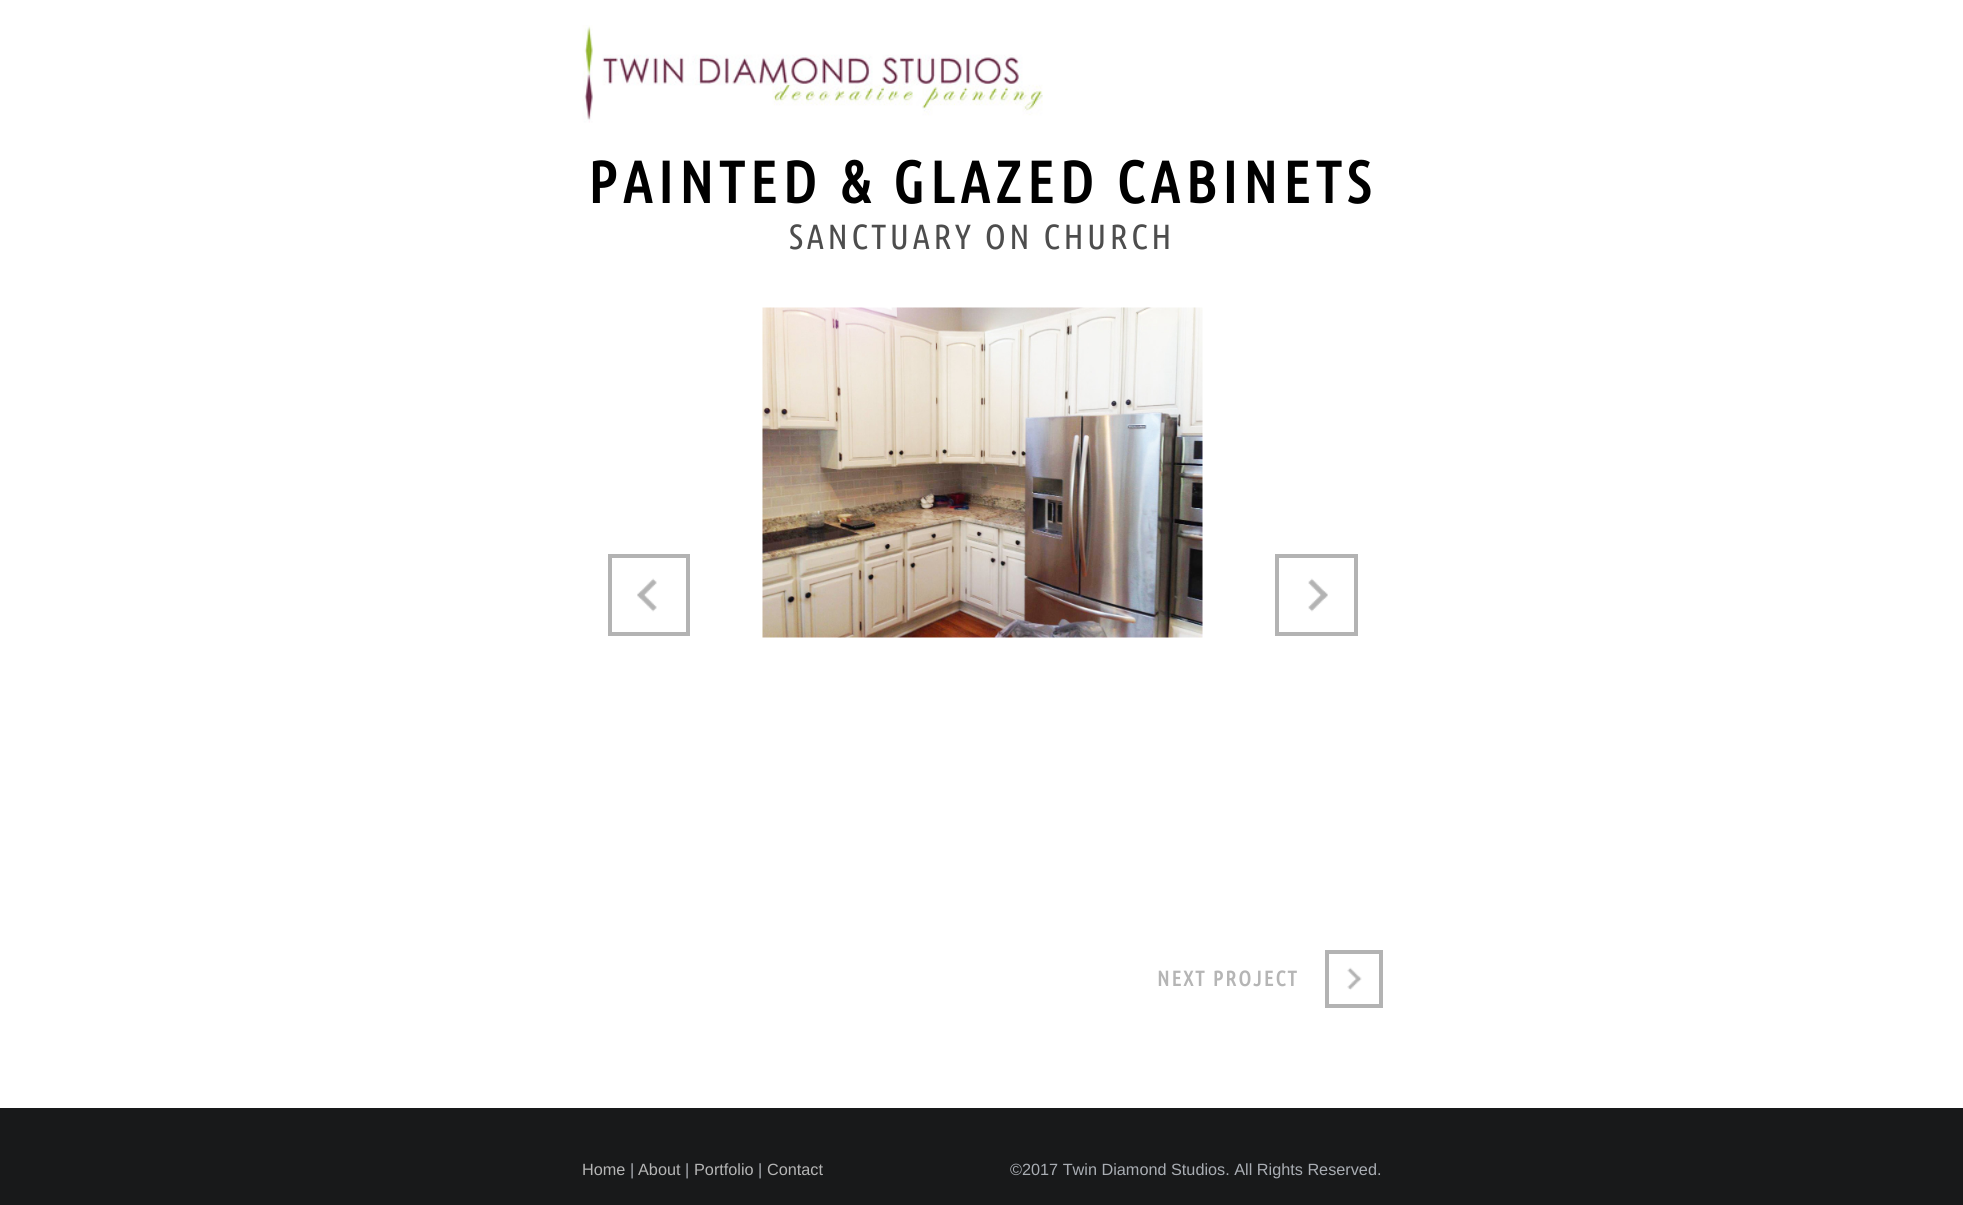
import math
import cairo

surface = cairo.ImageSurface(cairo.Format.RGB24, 1963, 1205)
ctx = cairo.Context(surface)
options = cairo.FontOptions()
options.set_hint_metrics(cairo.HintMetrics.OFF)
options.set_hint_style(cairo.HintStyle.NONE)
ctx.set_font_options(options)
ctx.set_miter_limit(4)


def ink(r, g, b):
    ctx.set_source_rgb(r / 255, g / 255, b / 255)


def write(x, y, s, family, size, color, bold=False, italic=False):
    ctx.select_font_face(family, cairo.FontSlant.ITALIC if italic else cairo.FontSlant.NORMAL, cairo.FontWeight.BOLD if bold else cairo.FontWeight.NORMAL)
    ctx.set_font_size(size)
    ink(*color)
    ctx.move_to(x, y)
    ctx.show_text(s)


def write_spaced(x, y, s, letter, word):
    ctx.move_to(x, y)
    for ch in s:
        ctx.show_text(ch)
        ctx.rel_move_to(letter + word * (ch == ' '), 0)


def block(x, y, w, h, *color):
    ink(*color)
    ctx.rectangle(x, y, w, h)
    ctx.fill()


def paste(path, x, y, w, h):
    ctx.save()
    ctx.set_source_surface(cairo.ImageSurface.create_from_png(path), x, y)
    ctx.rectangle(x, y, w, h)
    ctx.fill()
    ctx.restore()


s1 = dict(family="Liberation Sans", size=16.25, color=(181, 181, 181))
s2 = dict(family="Liberation Sans", size=16.25, color=(169, 173, 179))

ink(255, 255, 255)
ctx.paint()
paste("pic1.png", 582, 25, 461, 98)
ctx.select_font_face("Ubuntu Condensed", cairo.FontSlant.NORMAL, cairo.FontWeight.BOLD)
ctx.set_font_size(58.75)
ink(0, 0, 0)
write_spaced(588, 203, "PAINTED & GLAZED CABINETS", 5.9, 0)
ctx.select_font_face("Ubuntu Condensed")
ctx.set_font_size(35)
ink(77, 77, 77)
write_spaced(789, 249, "SANCTUARY ON CHURCH", 3.5, 0)
paste("pic2.png", 762, 307, 441, 331)
paste("pic3.png", 637, 578, 20, 34)
ctx.rectangle(610, 556, 78, 78)
ink(179, 179, 179)
ctx.set_line_width(4)
ctx.stroke()
paste("pic4.png", 1308, 578, 20, 34)
ctx.rectangle(1277, 556, 79, 78)
ctx.stroke()
ctx.select_font_face("Ubuntu Condensed", cairo.FontSlant.NORMAL, cairo.FontWeight.BOLD)
ctx.set_font_size(21.25)
ink(181, 181, 181)
write_spaced(1157, 986, "NEXT PROJECT", 2.1, 0)
paste("pic5.png", 1347, 967, 15, 23)
ctx.rectangle(1327, 952, 54, 54)
ink(179, 179, 179)
ctx.stroke()
block(0, 1108, 1963, 97, 24, 25, 26)
write(582, 1175, "Home", **s1)
write(630, 1175, "|", **s2)
write(638, 1175, "About", **s1)
write(685, 1175, "|", **s2)
write(694, 1175, "Portfolio", **s1)
write(758, 1175, "|", **s2)
write(767, 1175, "Contact", **s1)
write(1010, 1175, "©2017 Twin Diamond Studios. All Rights Reserved.", **s2)
surface.write_to_png("screenshot.png")
